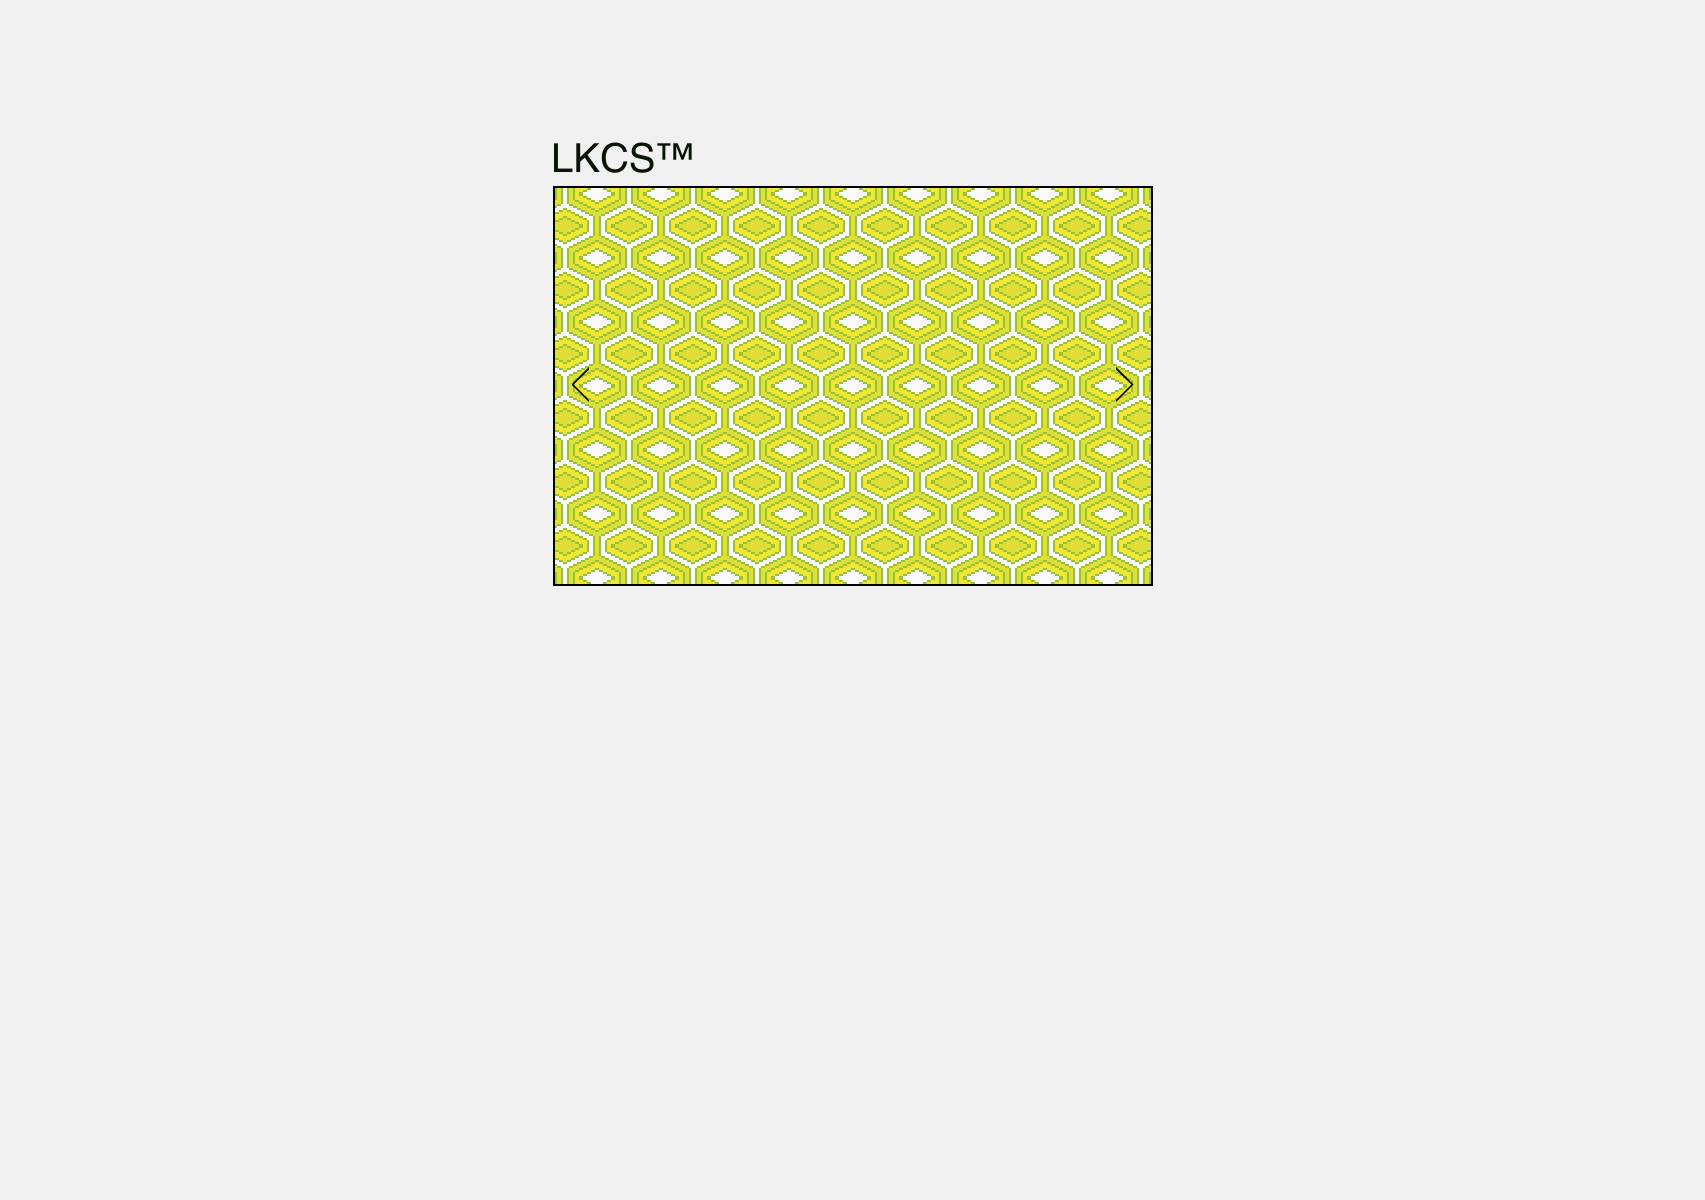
import math
import cairo

surface = cairo.ImageSurface(cairo.Format.RGB24, 1705, 1200)
ctx = cairo.Context(surface)
options = cairo.FontOptions()
options.set_hint_metrics(cairo.HintMetrics.OFF)
options.set_hint_style(cairo.HintStyle.NONE)
ctx.set_font_options(options)
ctx.set_miter_limit(4)


def ink(r, g, b):
    ctx.set_source_rgb(r / 255, g / 255, b / 255)


def write(x, y, s, family, size, color, bold=False, italic=False):
    ctx.select_font_face(family, cairo.FontSlant.ITALIC if italic else cairo.FontSlant.NORMAL, cairo.FontWeight.BOLD if bold else cairo.FontWeight.NORMAL)
    ctx.set_font_size(size)
    ink(*color)
    ctx.move_to(x, y)
    ctx.show_text(s)


def paste(path, x, y, w, h):
    ctx.save()
    ctx.set_source_surface(cairo.ImageSurface.create_from_png(path), x, y)
    ctx.rectangle(x, y, w, h)
    ctx.fill()
    ctx.restore()


s1 = dict(family="helvetica", size=40, color=(9, 20, 5))

ink(240, 240, 240)
ctx.paint()
write(551, 172, "LKCS™", **s1)
paste("pic1.png", 555, 188, 596, 396)
ctx.rectangle(554, 187, 598, 398)
ink(0, 0, 0)
ctx.stroke()
ctx.save()
ctx.rectangle(572, 367, 17, 35)
ctx.clip()
ctx.new_path()
ctx.move_to(589.5, 402)
ctx.line_to(572, 384.5)
ctx.line_to(589.5, 367)
ctx.line_to(590, 368)
ctx.line_to(573, 384.5)
ctx.line_to(590, 401.5)
ctx.close_path()
ctx.set_line_width(0.9)
ctx.stroke()
ctx.restore()
ctx.save()
ctx.rectangle(1116, 367, 18, 35)
ctx.clip()
ctx.new_path()
ctx.move_to(1115.5, 402)
ctx.line_to(1133, 384.5)
ctx.line_to(1115.5, 367)
ctx.line_to(1115, 368)
ctx.line_to(1132, 384.5)
ctx.line_to(1115, 401.5)
ctx.close_path()
ctx.set_line_width(0.9)
ctx.stroke()
ctx.restore()
surface.write_to_png("screenshot.png")
